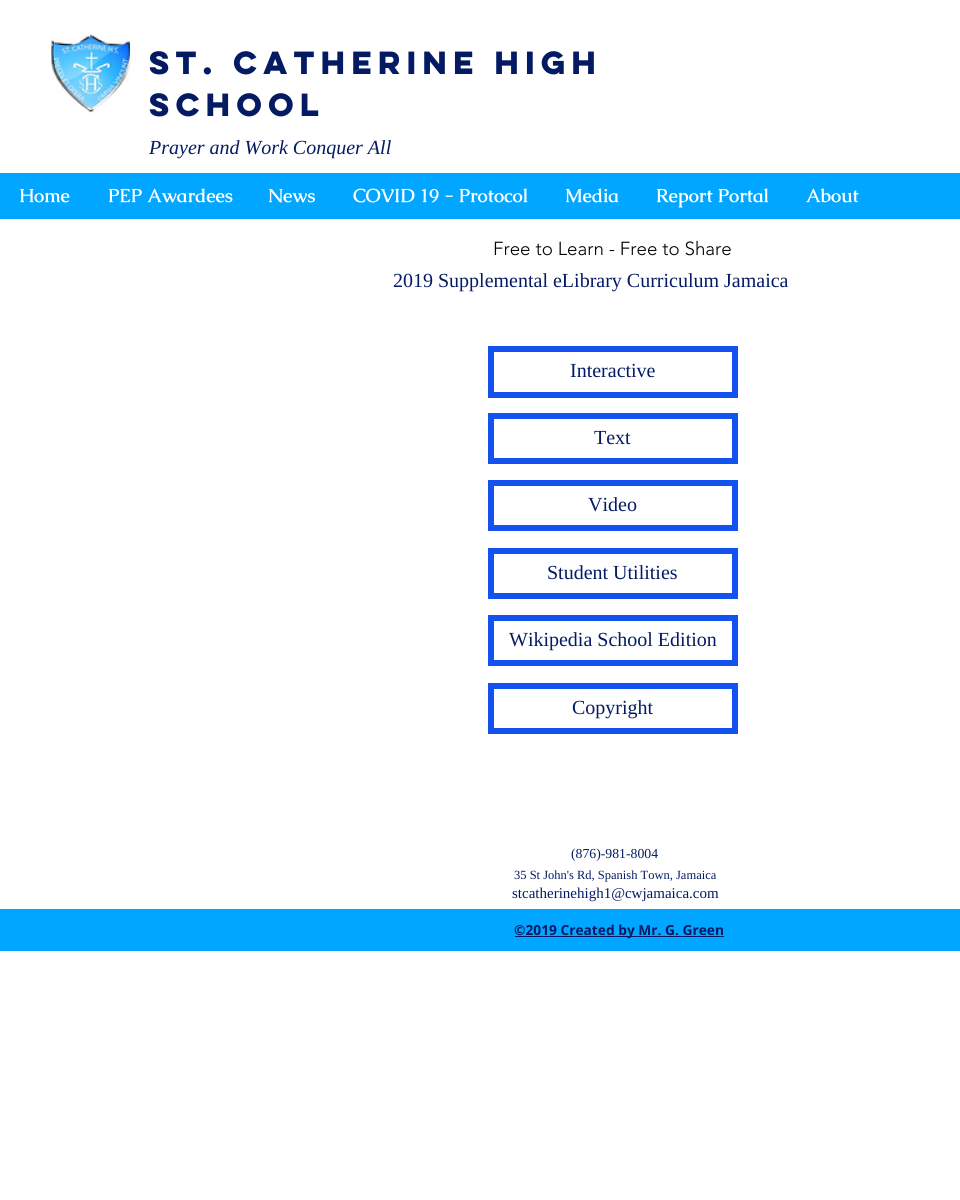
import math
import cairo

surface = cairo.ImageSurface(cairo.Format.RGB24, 960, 1200)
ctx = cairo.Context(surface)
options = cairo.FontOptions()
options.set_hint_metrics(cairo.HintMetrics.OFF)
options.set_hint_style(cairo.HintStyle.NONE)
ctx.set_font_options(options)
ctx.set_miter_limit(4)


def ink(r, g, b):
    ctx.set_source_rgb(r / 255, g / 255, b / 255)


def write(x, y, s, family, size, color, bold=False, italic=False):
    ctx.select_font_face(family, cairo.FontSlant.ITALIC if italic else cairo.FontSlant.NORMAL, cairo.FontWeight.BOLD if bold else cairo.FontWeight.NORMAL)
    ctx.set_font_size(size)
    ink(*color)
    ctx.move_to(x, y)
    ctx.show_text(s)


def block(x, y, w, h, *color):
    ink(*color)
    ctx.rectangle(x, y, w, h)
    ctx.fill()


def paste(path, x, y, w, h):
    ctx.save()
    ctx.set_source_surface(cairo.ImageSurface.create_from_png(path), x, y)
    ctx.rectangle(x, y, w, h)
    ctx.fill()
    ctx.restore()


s1 = dict(family="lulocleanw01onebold", size=28.75, color=(4, 27, 99), bold=True)
s2 = dict(family="Liberation Serif", size=20, color=(4, 27, 99), italic=True)
s3 = dict(family="Caudex", size=18.75, color=(255, 255, 255), bold=True)
s4 = dict(family="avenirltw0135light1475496 Light", size=18.75, color=(0, 0, 0))
s5 = dict(family="Liberation Serif", size=20, color=(4, 27, 99))
s6 = dict(family="Liberation Serif", size=13.75, color=(4, 27, 99))
s7 = dict(family="Liberation Serif", size=12.5, color=(4, 27, 99))
s8 = dict(family="Liberation Serif", size=15, color=(4, 27, 99))
s9 = dict(family="Open Sans", size=13.75, color=(4, 27, 99), bold=True)

ink(255, 255, 255)
ctx.paint()
paste("pic1.png", 51, 33, 79, 80)
write(149, 74, "St. Catherine High", **s1)
write(149, 116, "School", **s1)
write(149, 154, "Prayer and Work Conquer All", **s2)
block(0, 173, 960, 46, 0, 166, 255)
write(19, 202, "Home", **s3)
write(108, 202, "PEP Awardees", **s3)
write(268, 202, "News", **s3)
write(353, 202, "COVID 19 - Protocol", **s3)
write(565, 202, "Media", **s3)
write(656, 202, "Report Portal", **s3)
write(806, 202, "About", **s3)
write(493, 255, "Free to Learn - Free to Share", **s4)
write(393, 287, "2019 Supplemental eLibrary Curriculum Jamaica", **s5)
ctx.rectangle(491, 349, 244, 46)
ink(19, 81, 241)
ctx.set_line_width(6)
ctx.stroke()
write(570, 377, "Interactive", **s5)
ctx.rectangle(491, 416, 244, 45)
ink(19, 81, 241)
ctx.stroke()
write(594, 444, "Text", **s5)
ctx.rectangle(491, 483, 244, 45)
ink(19, 81, 241)
ctx.stroke()
write(588, 511, "Video", **s5)
ctx.rectangle(491, 551, 244, 45)
ink(19, 81, 241)
ctx.stroke()
write(547, 579, "Student Utilities", **s5)
ctx.rectangle(491, 618, 244, 45)
ink(19, 81, 241)
ctx.stroke()
write(509, 646, "Wikipedia School Edition", **s5)
ctx.rectangle(491, 686, 244, 45)
ink(19, 81, 241)
ctx.stroke()
write(572, 714, "Copyright", **s5)
write(571, 858, "(876)-981-8004", **s6)
write(514, 879, "35 St John's Rd, Spanish Town, Jamaica", **s7)
write(512, 898, "stcatherinehigh1@cwjamaica.com", **s8)
block(0, 909, 960, 42, 0, 166, 255)
block(515, 936, 209, 1, 4, 27, 99)
write(514, 935, "©2019 Created by Mr. G. Green", **s9)
surface.write_to_png("screenshot.png")
